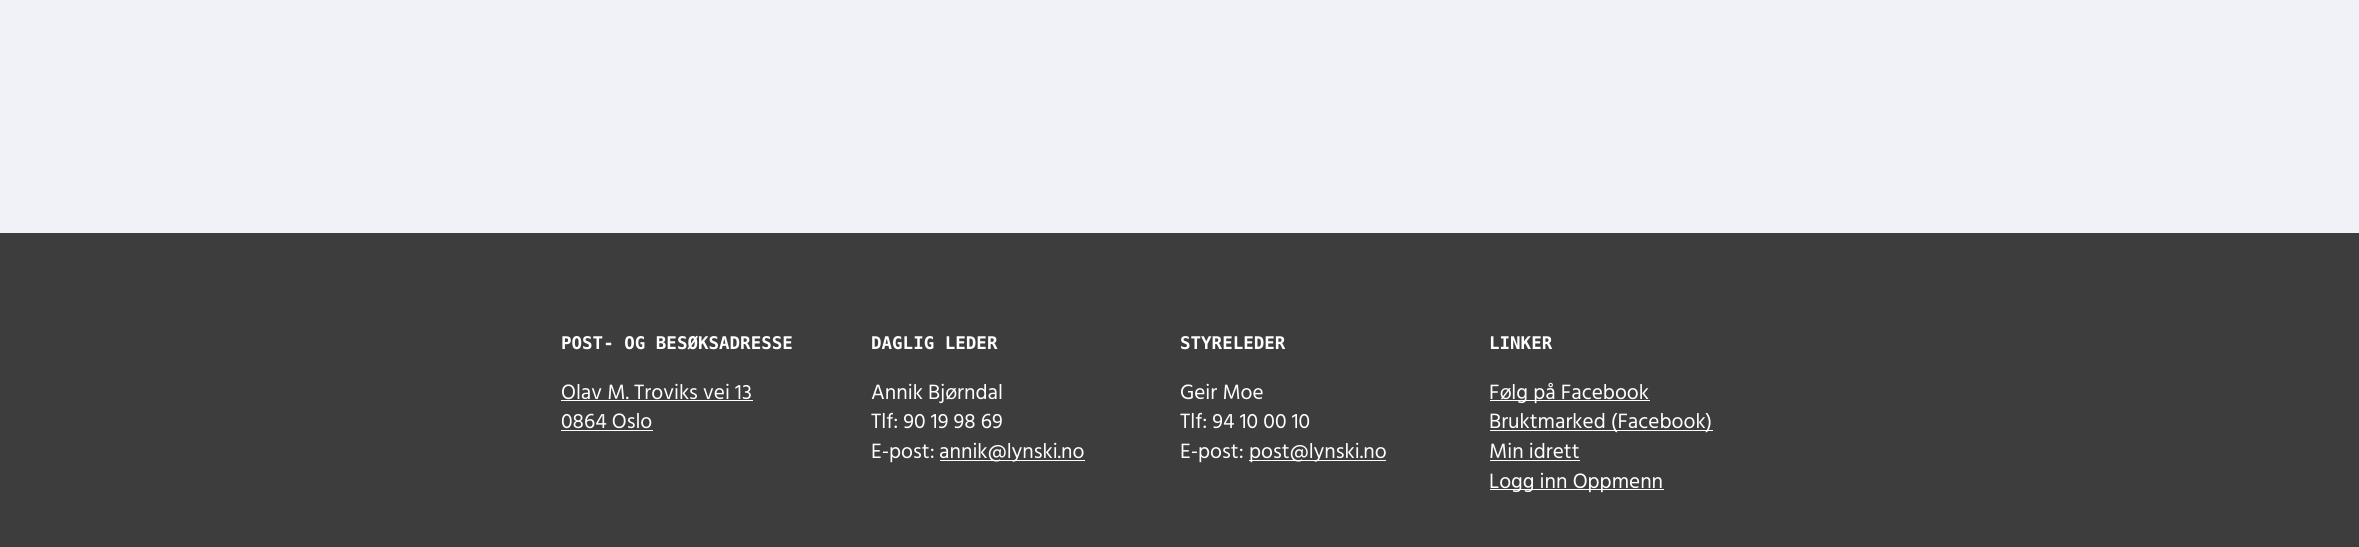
import math
import cairo

surface = cairo.ImageSurface(cairo.Format.RGB24, 2359, 547)
ctx = cairo.Context(surface)
options = cairo.FontOptions()
options.set_hint_metrics(cairo.HintMetrics.OFF)
options.set_hint_style(cairo.HintStyle.NONE)
ctx.set_font_options(options)
ctx.set_miter_limit(4)


def ink(r, g, b):
    ctx.set_source_rgb(r / 255, g / 255, b / 255)


def write(x, y, s, family, size, color, bold=False, italic=False):
    ctx.select_font_face(family, cairo.FontSlant.ITALIC if italic else cairo.FontSlant.NORMAL, cairo.FontWeight.BOLD if bold else cairo.FontWeight.NORMAL)
    ctx.set_font_size(size)
    ink(*color)
    ctx.move_to(x, y)
    ctx.show_text(s)


def block(x, y, w, h, *color):
    ink(*color)
    ctx.rectangle(x, y, w, h)
    ctx.fill()


s1 = dict(family="DejaVu Sans Mono", size=17.5, color=(255, 255, 255), bold=True)
s2 = dict(family="Hind", size=21.25, color=(255, 255, 255))

ink(241, 242, 247)
ctx.paint()
block(0, 233, 2359, 314, 61, 61, 61)
write(561, 349, "POST- OG BESØKSADRESSE", **s1)
write(561, 399, "Olav M. Troviks vei 13", **s2)
block(561, 400, 192, 1, 255, 255, 255)
write(561, 428, "0864 Oslo", **s2)
block(561, 430, 92, 1, 255, 255, 255)
write(871, 349, "DAGLIG LEDER", **s1)
write(871, 399, "Annik Bjørndal", **s2)
write(871, 428, "Tlf: 90 19 98 69", **s2)
write(871, 458, "E-post:", **s2)
block(940, 460, 145, 1, 255, 255, 255)
write(939, 458, "annik@lynski.no", **s2)
write(1180, 349, "STYRELEDER", **s1)
write(1180, 399, "Geir Moe", **s2)
write(1180, 428, "Tlf: 94 10 00 10", **s2)
write(1180, 458, "E-post:", **s2)
block(1249, 460, 137, 1, 255, 255, 255)
write(1249, 458, "post@lynski.no", **s2)
write(1489, 349, "LINKER", **s1)
block(1490, 400, 160, 1, 255, 255, 255)
write(1489, 399, "Følg på Facebook", **s2)
block(1490, 430, 223, 1, 255, 255, 255)
write(1489, 428, "Bruktmarked (Facebook)", **s2)
write(1489, 458, "Min idrett", **s2)
block(1490, 460, 90, 1, 255, 255, 255)
block(1490, 489, 174, 1, 255, 255, 255)
write(1489, 488, "Logg inn Oppmenn", **s2)
surface.write_to_png("screenshot.png")
